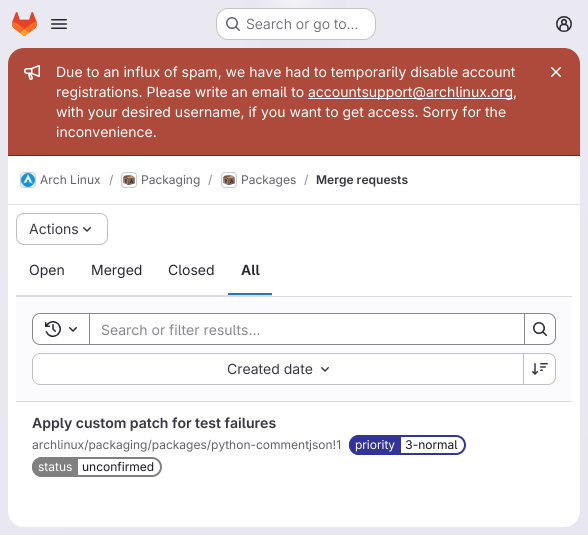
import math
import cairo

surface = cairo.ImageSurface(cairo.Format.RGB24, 588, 535)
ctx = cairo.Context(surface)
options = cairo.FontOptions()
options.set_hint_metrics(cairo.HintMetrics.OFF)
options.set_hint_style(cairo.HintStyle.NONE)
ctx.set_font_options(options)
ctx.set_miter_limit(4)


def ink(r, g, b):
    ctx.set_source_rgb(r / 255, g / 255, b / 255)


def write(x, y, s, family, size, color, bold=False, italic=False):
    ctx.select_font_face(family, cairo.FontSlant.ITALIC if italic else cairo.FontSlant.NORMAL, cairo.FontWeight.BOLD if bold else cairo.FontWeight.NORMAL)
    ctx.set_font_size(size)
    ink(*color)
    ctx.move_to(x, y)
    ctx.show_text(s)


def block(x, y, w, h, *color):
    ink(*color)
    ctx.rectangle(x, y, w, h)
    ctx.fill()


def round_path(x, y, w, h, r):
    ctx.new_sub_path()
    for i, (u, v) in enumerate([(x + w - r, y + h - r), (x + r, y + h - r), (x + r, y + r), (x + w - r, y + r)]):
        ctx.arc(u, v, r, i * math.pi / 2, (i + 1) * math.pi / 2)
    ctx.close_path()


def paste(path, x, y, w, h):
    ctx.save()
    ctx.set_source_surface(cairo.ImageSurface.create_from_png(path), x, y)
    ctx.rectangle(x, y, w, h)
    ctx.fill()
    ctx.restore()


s1 = dict(family="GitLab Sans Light", size=14, color=(98, 97, 104))
s2 = dict(family="GitLab Sans", size=14, color=(255, 255, 255))
s3 = dict(family="GitLab Sans", size=12, color=(98, 97, 104))
s4 = dict(family="GitLab Sans", size=12, color=(137, 136, 141))
s5 = dict(family="GitLab Sans SemiBold", size=12, color=(58, 56, 63))
s6 = dict(family="GitLab Sans", size=14, color=(58, 56, 63))
s7 = dict(family="GitLab Sans", size=14, color=(40, 39, 45))
s8 = dict(family="GitLab Sans SemiBold", size=14, color=(40, 39, 45))
s9 = dict(family="GitLab Sans", size=14, color=(137, 136, 141))
s10 = dict(family="GitLab Sans SemiBold", size=14, color=(58, 56, 63))
s11 = dict(family="GitLab Sans", size=12, color=(255, 255, 255))
s12 = dict(family="GitLab Sans", size=12, color=(24, 23, 29))

ink(255, 255, 255)
ctx.paint()
gradient = cairo.LinearGradient(349, 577, 239, -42)
gradient.add_color_stop_rgba(0, 0.91, 0.902, 0.941, 1)
gradient.add_color_stop_rgba(0.7, 0.918, 0.914, 0.949, 1)
ctx.set_source(gradient)
ctx.rectangle(0, 0, 588, 535)
ctx.fill()
gradient = cairo.RadialGradient(0, 0, 0, 0, 0, 1)
gradient.set_matrix(cairo.Matrix(1 / 294, 0, 0, 1 / 535, -1 * 294 / 294, -1 * 0 / 535))
gradient.add_color_stop_rgba(0, 0.894, 0.886, 0.929, 1)
gradient.add_color_stop_rgba(0.24, 0.894, 0.886, 0.929, 0)
ctx.set_source(gradient)
ctx.rectangle(244, 0, 101, 48)
ctx.fill()
gradient = cairo.RadialGradient(0, 0, 0, 0, 0, 1)
gradient.set_matrix(cairo.Matrix(1 / 294, 0, 0, 1 / 535, -1 * 294 / 294, -1 * 0 / 535))
gradient.add_color_stop_rgba(0, 0.894, 0.886, 0.925, 1)
gradient.add_color_stop_rgba(0.17, 0.894, 0.886, 0.925, 0)
ctx.set_source(gradient)
ctx.rectangle(273, 1, 42, 28)
ctx.fill()
gradient = cairo.RadialGradient(294, 0, 0, 294, 0, 610)
gradient.add_color_stop_rgba(0, 1, 1, 1, 0.6)
gradient.add_color_stop_rgba(0.07, 1, 1, 1, 0)
ctx.set_source(gradient)
ctx.rectangle(253, 0, 82, 8)
ctx.fill()
paste("pic1.png", 12, 12, 25, 24)
paste("pic2.png", 51, 19, 16, 10)
ink(255, 255, 255)
round_path(216, 8, 160, 32, 12)
ctx.fill()
round_path(216.5, 8.5, 159, 31, 11.5)
ctx.set_source_rgba(0.02, 0.02, 0.024, 0.24)
ctx.set_line_width(1)
ctx.stroke()
paste("pic3.png", 226, 17, 14, 14)
write(246, 29, "Search or go to…", **s1)
paste("pic4.png", 556, 16, 16, 16)
ink(255, 255, 255)
round_path(8, 48, 572, 479, 16)
ctx.fill()
ink(173, 74, 59)
ctx.new_path()
ctx.move_to(24, 48)
ctx.line_to(564, 48)
ctx.curve_to(573, 48, 580, 55, 580, 64)
ctx.line_to(580, 156)
ctx.line_to(8, 156)
ctx.line_to(8, 64)
ctx.curve_to(8, 55, 15, 48, 24, 48)
ctx.close_path()
ctx.fill()
block(8, 155, 572, 1, 143, 33, 16)
paste("pic5.png", 24, 65, 16, 15)
write(56, 77, "Due to an influx of spam, we have had to temporarily disable account", **s2)
write(56, 97, "registrations. Please write an email to", **s2)
block(308, 98, 205, 1, 255, 255, 255)
write(308, 97, "accountsupport@archlinux.org,", **s2)
write(56, 117, "with your desired username, if you want to get access. Sorry for the", **s2)
write(56, 137, "inconvenience.", **s2)
paste("pic6.png", 551, 67, 10, 10)
block(8, 204, 572, 1, 225, 223, 236)
round_path(20.5, 172.5, 15, 15, 3.5)
ink(220, 220, 222)
ctx.stroke()
paste("pic7.png", 21, 173, 14, 14)
round_path(20.5, 172.5, 15, 15, 3.5)
ctx.set_source_rgba(0.02, 0.02, 0.024, 0.08)
ctx.stroke()
write(40, 184, "Arch Linux", **s3)
write(109, 184, "/", **s4)
round_path(121.5, 172.5, 15, 15, 3.5)
ink(220, 220, 222)
ctx.stroke()
paste("pic8.png", 123, 174, 12, 12)
round_path(121.5, 172.5, 15, 15, 3.5)
ctx.set_source_rgba(0.02, 0.02, 0.024, 0.08)
ctx.stroke()
write(141, 184, "Packaging", **s3)
write(208, 184, "/", **s4)
round_path(221.5, 172.5, 15, 15, 3.5)
ink(220, 220, 222)
ctx.stroke()
paste("pic9.png", 223, 174, 12, 12)
round_path(221.5, 172.5, 15, 15, 3.5)
ctx.set_source_rgba(0.02, 0.02, 0.024, 0.08)
ctx.stroke()
write(241, 184, "Packages", **s3)
write(304, 184, "/", **s4)
write(316, 184, "Merge requests", **s5)
block(16, 296, 556, 1, 220, 220, 222)
round_path(16.5, 213.5, 91, 31, 7.5)
ink(191, 191, 195)
ctx.stroke()
write(29, 234, "Actions", **s6)
paste("pic10.png", 83, 227, 8, 5)
block(16, 295, 256, 1, 220, 220, 222)
write(29, 275, "Open", **s7)
write(91, 275, "Merged", **s7)
write(168, 275, "Closed", **s7)
write(241, 275, "All", **s8)
block(228, 293, 44, 2, 31, 117, 203)
block(16, 297, 556, 104, 251, 250, 253)
block(16, 401, 556, 1, 220, 220, 222)
ink(255, 255, 255)
ctx.rectangle(89.5, 313.5, 435, 31)
ctx.fill_preserve()
ink(137, 136, 141)
ctx.stroke()
ink(255, 255, 255)
ctx.new_path()
ctx.move_to(40, 313.5)
ctx.line_to(89.5, 313.5)
ctx.line_to(89.5, 344.5)
ctx.line_to(40, 344.5)
ctx.curve_to(36, 344.5, 32.5, 341, 32.5, 337)
ctx.line_to(32.5, 321)
ctx.curve_to(32.5, 317, 36, 313.5, 40, 313.5)
ctx.close_path()
ctx.fill_preserve()
ink(137, 136, 141)
ctx.stroke()
paste("pic11.png", 45, 321, 16, 16)
paste("pic12.png", 69, 327, 8, 5)
write(101, 335, "Search or filter results…", **s9)
ink(255, 255, 255)
ctx.new_path()
ctx.move_to(524.5, 313.5)
ctx.line_to(548, 313.5)
ctx.curve_to(552, 313.5, 555.5, 317, 555.5, 321)
ctx.line_to(555.5, 337)
ctx.curve_to(555.5, 341, 552, 344.5, 548, 344.5)
ctx.line_to(524.5, 344.5)
ctx.close_path()
ctx.fill_preserve()
ink(137, 136, 141)
ctx.stroke()
paste("pic13.png", 533, 322, 14, 14)
ink(255, 255, 255)
ctx.new_path()
ctx.move_to(40, 354)
ctx.line_to(523, 354)
ctx.line_to(523, 384)
ctx.line_to(40, 384)
ctx.curve_to(36, 384, 33, 381, 33, 377)
ctx.line_to(33, 361)
ctx.curve_to(33, 357, 36, 354, 40, 354)
ctx.close_path()
ctx.fill()
ink(191, 191, 195)
ctx.set_fill_rule(cairo.FillRule.EVEN_ODD)
ctx.new_path()
ctx.move_to(40, 353)
ctx.line_to(523, 353)
ctx.line_to(523, 385)
ctx.line_to(40, 385)
ctx.curve_to(36, 385, 32, 381, 32, 377)
ctx.line_to(32, 361)
ctx.curve_to(32, 357, 36, 353, 40, 353)
ctx.close_path()
ctx.move_to(40, 354)
ctx.line_to(523, 354)
ctx.line_to(523, 384)
ctx.line_to(40, 384)
ctx.curve_to(36, 384, 33, 381, 33, 377)
ctx.line_to(33, 361)
ctx.curve_to(33, 357, 36, 354, 40, 354)
ctx.close_path()
ctx.fill()
write(227, 374, "Created date", **s6)
paste("pic10.png", 321, 367, 8, 5)
ink(255, 255, 255)
ctx.new_path()
ctx.move_to(524, 354)
ctx.line_to(548, 354)
ctx.curve_to(552, 354, 555, 357, 555, 361)
ctx.line_to(555, 377)
ctx.curve_to(555, 381, 552, 384, 548, 384)
ctx.line_to(524, 384)
ctx.close_path()
ctx.fill()
ink(191, 191, 195)
ctx.new_path()
ctx.move_to(524, 353)
ctx.line_to(548, 353)
ctx.curve_to(552.5, 353, 556, 356.5, 556, 361)
ctx.line_to(556, 377)
ctx.curve_to(556, 381.5, 552.5, 385, 548, 385)
ctx.line_to(524, 385)
ctx.close_path()
ctx.move_to(524, 354)
ctx.line_to(548, 354)
ctx.curve_to(552, 354, 555, 357, 555, 361)
ctx.line_to(555, 377)
ctx.curve_to(555, 381, 552, 384, 548, 384)
ctx.line_to(524, 384)
ctx.close_path()
ctx.fill()
block(523, 353, 1, 32, 191, 191, 195)
paste("pic14.png", 532, 363, 16, 12)
write(32, 428, "Apply custom patch for test failures", **s10)
write(32, 449, "archlinux/packaging/packages/python-commentjson!1", **s3)
round_path(350, 436, 115, 18, 9)
ink(51, 51, 153)
ctx.set_line_width(2)
ctx.stroke()
ctx.new_path()
ctx.move_to(359, 435)
ctx.line_to(401, 435)
ctx.line_to(401, 455)
ctx.line_to(359, 455)
ctx.curve_to(353.5, 455, 349, 450.5, 349, 445)
ctx.curve_to(349, 439.5, 353.5, 435, 359, 435)
ctx.close_path()
ctx.fill()
write(355, 449, "priority", **s11)
write(405, 449, "3-normal", **s12)
round_path(33, 458, 128, 18, 9)
ink(128, 128, 128)
ctx.stroke()
ctx.new_path()
ctx.move_to(42, 457)
ctx.line_to(78, 457)
ctx.line_to(78, 477)
ctx.line_to(42, 477)
ctx.curve_to(36.5, 477, 32, 472.5, 32, 467)
ctx.curve_to(32, 461.5, 36.5, 457, 42, 457)
ctx.close_path()
ctx.fill()
write(38, 471, "status", **s11)
write(82, 471, "unconfirmed", **s12)
surface.write_to_png("screenshot.png")
